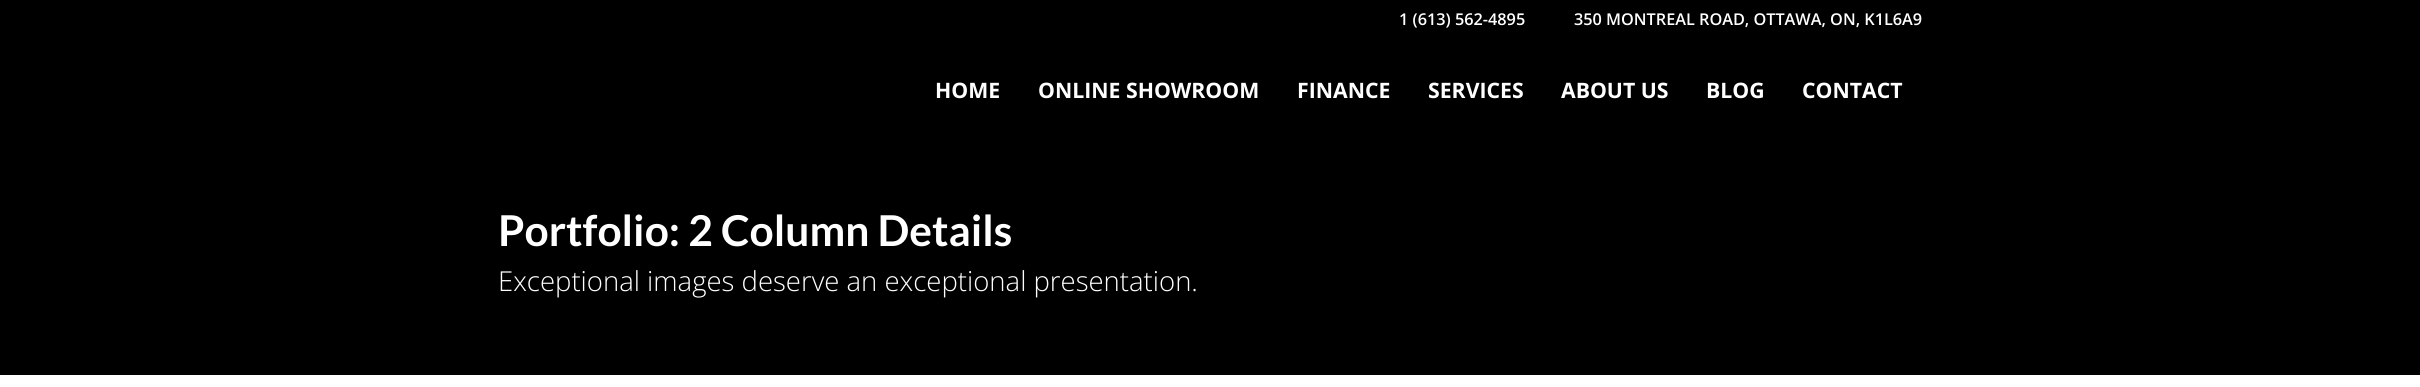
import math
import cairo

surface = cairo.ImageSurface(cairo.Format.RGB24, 2420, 387)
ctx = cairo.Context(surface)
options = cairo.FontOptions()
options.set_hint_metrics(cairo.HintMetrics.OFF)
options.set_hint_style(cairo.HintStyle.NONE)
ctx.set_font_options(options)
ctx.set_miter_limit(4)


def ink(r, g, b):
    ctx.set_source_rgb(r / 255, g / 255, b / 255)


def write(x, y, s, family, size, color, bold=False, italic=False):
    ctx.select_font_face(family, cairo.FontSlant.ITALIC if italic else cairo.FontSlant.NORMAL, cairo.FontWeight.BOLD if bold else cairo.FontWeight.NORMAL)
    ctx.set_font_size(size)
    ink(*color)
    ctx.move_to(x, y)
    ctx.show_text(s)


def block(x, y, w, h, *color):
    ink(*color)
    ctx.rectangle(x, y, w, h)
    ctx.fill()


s1 = dict(family="Open Sans SemiBold", size=16.25, color=(255, 255, 255))
s2 = dict(family="Open Sans", size=21.25, color=(255, 255, 255), bold=True)
s3 = dict(family="Lato", size=42.5, color=(255, 255, 255), bold=True)
s4 = dict(family="Open Sans Light", size=27.5, color=(255, 255, 255))

ink(255, 255, 255)
ctx.paint()
block(0, 0, 2420, 375, 0, 0, 0)
write(1399, 25, "1 (613) 562-4895", **s1)
write(1574, 25, "350 MONTREAL ROAD, OTTAWA, ON, K1L6A9", **s1)
write(935, 98, "HOME", **s2)
write(1038, 98, "ONLINE SHOWROOM", **s2)
write(1297, 98, "FINANCE", **s2)
write(1428, 98, "SERVICES", **s2)
write(1561, 98, "ABOUT US", **s2)
write(1706, 98, "BLOG", **s2)
write(1802, 98, "CONTACT", **s2)
write(498, 246, "Portfolio: 2 Column Details", **s3)
write(498, 291, "Exceptional images deserve an exceptional presentation.", **s4)
surface.write_to_png("screenshot.png")
